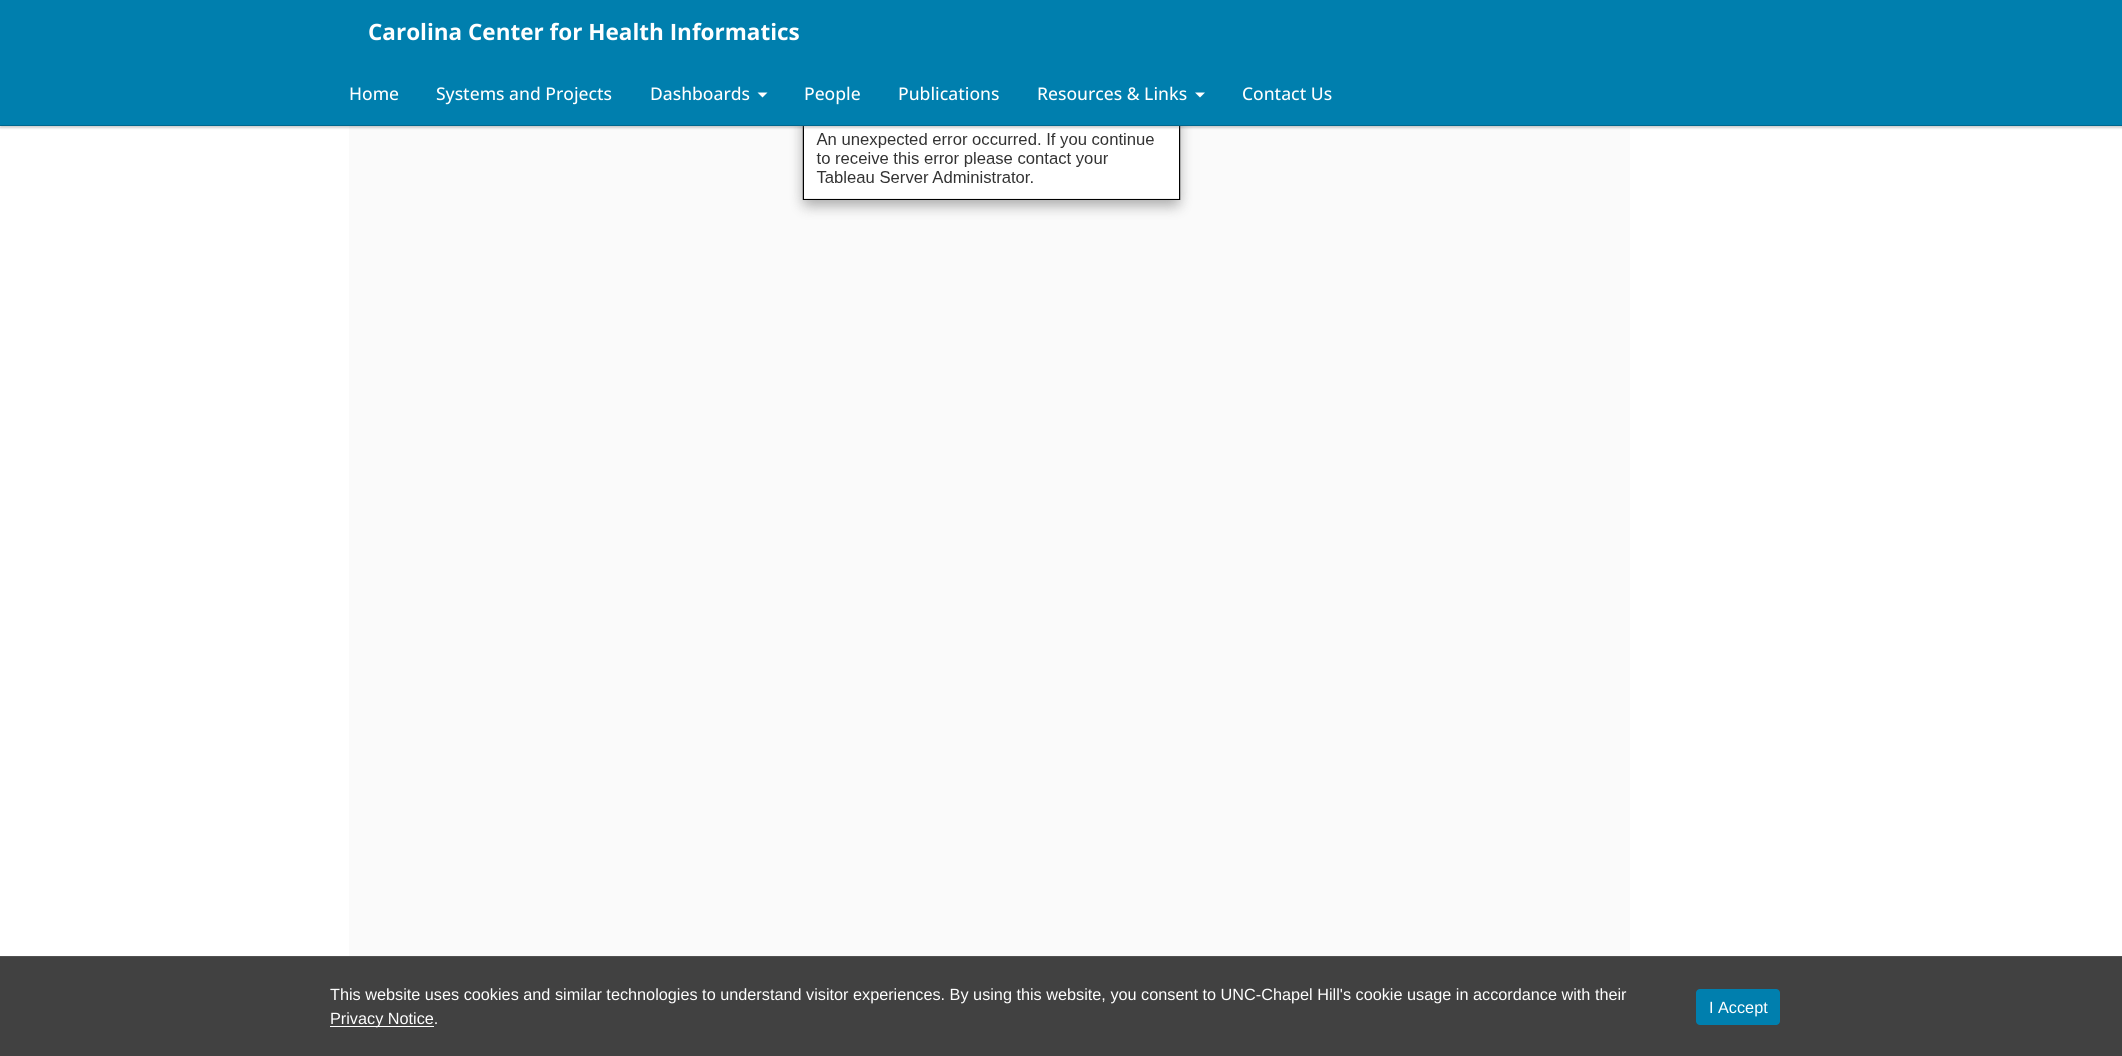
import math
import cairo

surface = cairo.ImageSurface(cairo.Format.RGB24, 2122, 1056)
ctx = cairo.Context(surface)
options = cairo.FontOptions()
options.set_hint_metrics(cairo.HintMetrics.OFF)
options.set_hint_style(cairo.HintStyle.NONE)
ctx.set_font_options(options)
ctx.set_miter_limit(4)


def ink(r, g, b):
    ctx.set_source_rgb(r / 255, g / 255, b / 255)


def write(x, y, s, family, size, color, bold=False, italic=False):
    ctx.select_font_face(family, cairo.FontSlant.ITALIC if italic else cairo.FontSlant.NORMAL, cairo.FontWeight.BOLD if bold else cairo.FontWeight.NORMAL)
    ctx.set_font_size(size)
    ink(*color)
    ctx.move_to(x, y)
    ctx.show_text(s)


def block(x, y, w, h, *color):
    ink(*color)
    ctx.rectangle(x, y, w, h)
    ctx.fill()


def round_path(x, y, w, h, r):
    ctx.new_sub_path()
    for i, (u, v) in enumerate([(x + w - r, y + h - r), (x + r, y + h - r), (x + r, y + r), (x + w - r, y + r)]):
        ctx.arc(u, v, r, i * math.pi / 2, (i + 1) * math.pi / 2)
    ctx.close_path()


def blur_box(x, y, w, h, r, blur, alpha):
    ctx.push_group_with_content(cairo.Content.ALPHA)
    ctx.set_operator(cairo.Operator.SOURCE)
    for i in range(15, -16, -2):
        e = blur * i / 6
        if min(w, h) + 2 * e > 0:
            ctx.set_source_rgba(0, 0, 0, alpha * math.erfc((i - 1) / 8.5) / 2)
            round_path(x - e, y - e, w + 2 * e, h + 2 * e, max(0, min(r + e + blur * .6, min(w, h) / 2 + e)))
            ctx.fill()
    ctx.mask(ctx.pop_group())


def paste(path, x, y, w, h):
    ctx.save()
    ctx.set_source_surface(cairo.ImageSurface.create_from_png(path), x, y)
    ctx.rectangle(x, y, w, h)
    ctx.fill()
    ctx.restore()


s1 = dict(family="Open Sans", size=22.5, color=(255, 255, 255), bold=True)
s2 = dict(family="Open Sans Medium", size=17.5, color=(255, 255, 255))
s3 = dict(family="Liberation Sans", size=16.25, color=(255, 255, 255))

ink(255, 255, 255)
ctx.paint()
paste("pic1.png", 349, 126, 1281, 830)
ink(100, 100, 100)
blur_box(0, 1, 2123, 127, 0, 1, 0.3)
block(0, 0, 2122, 125, 0, 127, 174)
block(0, 125, 2122, 1, 0, 103, 141)
write(368, 40, "Carolina Center for Health Informatics", **s1)
write(349, 100, "Home", **s2)
write(436, 100, "Systems and Projects", **s2)
write(650, 100, "Dashboards", **s2)
ctx.new_path()
ctx.move_to(757.5, 92.5)
ctx.line_to(767.5, 92.5)
ctx.line_to(762.5, 97.5)
ctx.close_path()
ctx.fill()
write(804, 100, "People", **s2)
write(898, 100, "Publications", **s2)
write(1037, 100, "Resources & Links", **s2)
ctx.new_path()
ctx.move_to(1195, 92.5)
ctx.line_to(1205, 92.5)
ctx.line_to(1200, 97.5)
ctx.close_path()
ctx.fill()
write(1242, 100, "Contact Us", **s2)
block(0, 957, 2122, 99, 65, 65, 65)
block(0, 956, 2122, 1, 81, 81, 81)
write(330, 1000, "This website uses cookies and similar technologies to understand visitor experiences. By using this website, you consent to UNC-Chapel Hill's cookie usage in accordance with their", **s3)
block(330, 1026, 104, 1, 255, 255, 255)
write(330, 1024, "Privacy Notice.", **s3)
ink(0, 127, 174)
round_path(1696, 989, 84, 36, 4)
ctx.fill()
write(1709, 1013, "I Accept", **s3)
surface.write_to_png("screenshot.png")
